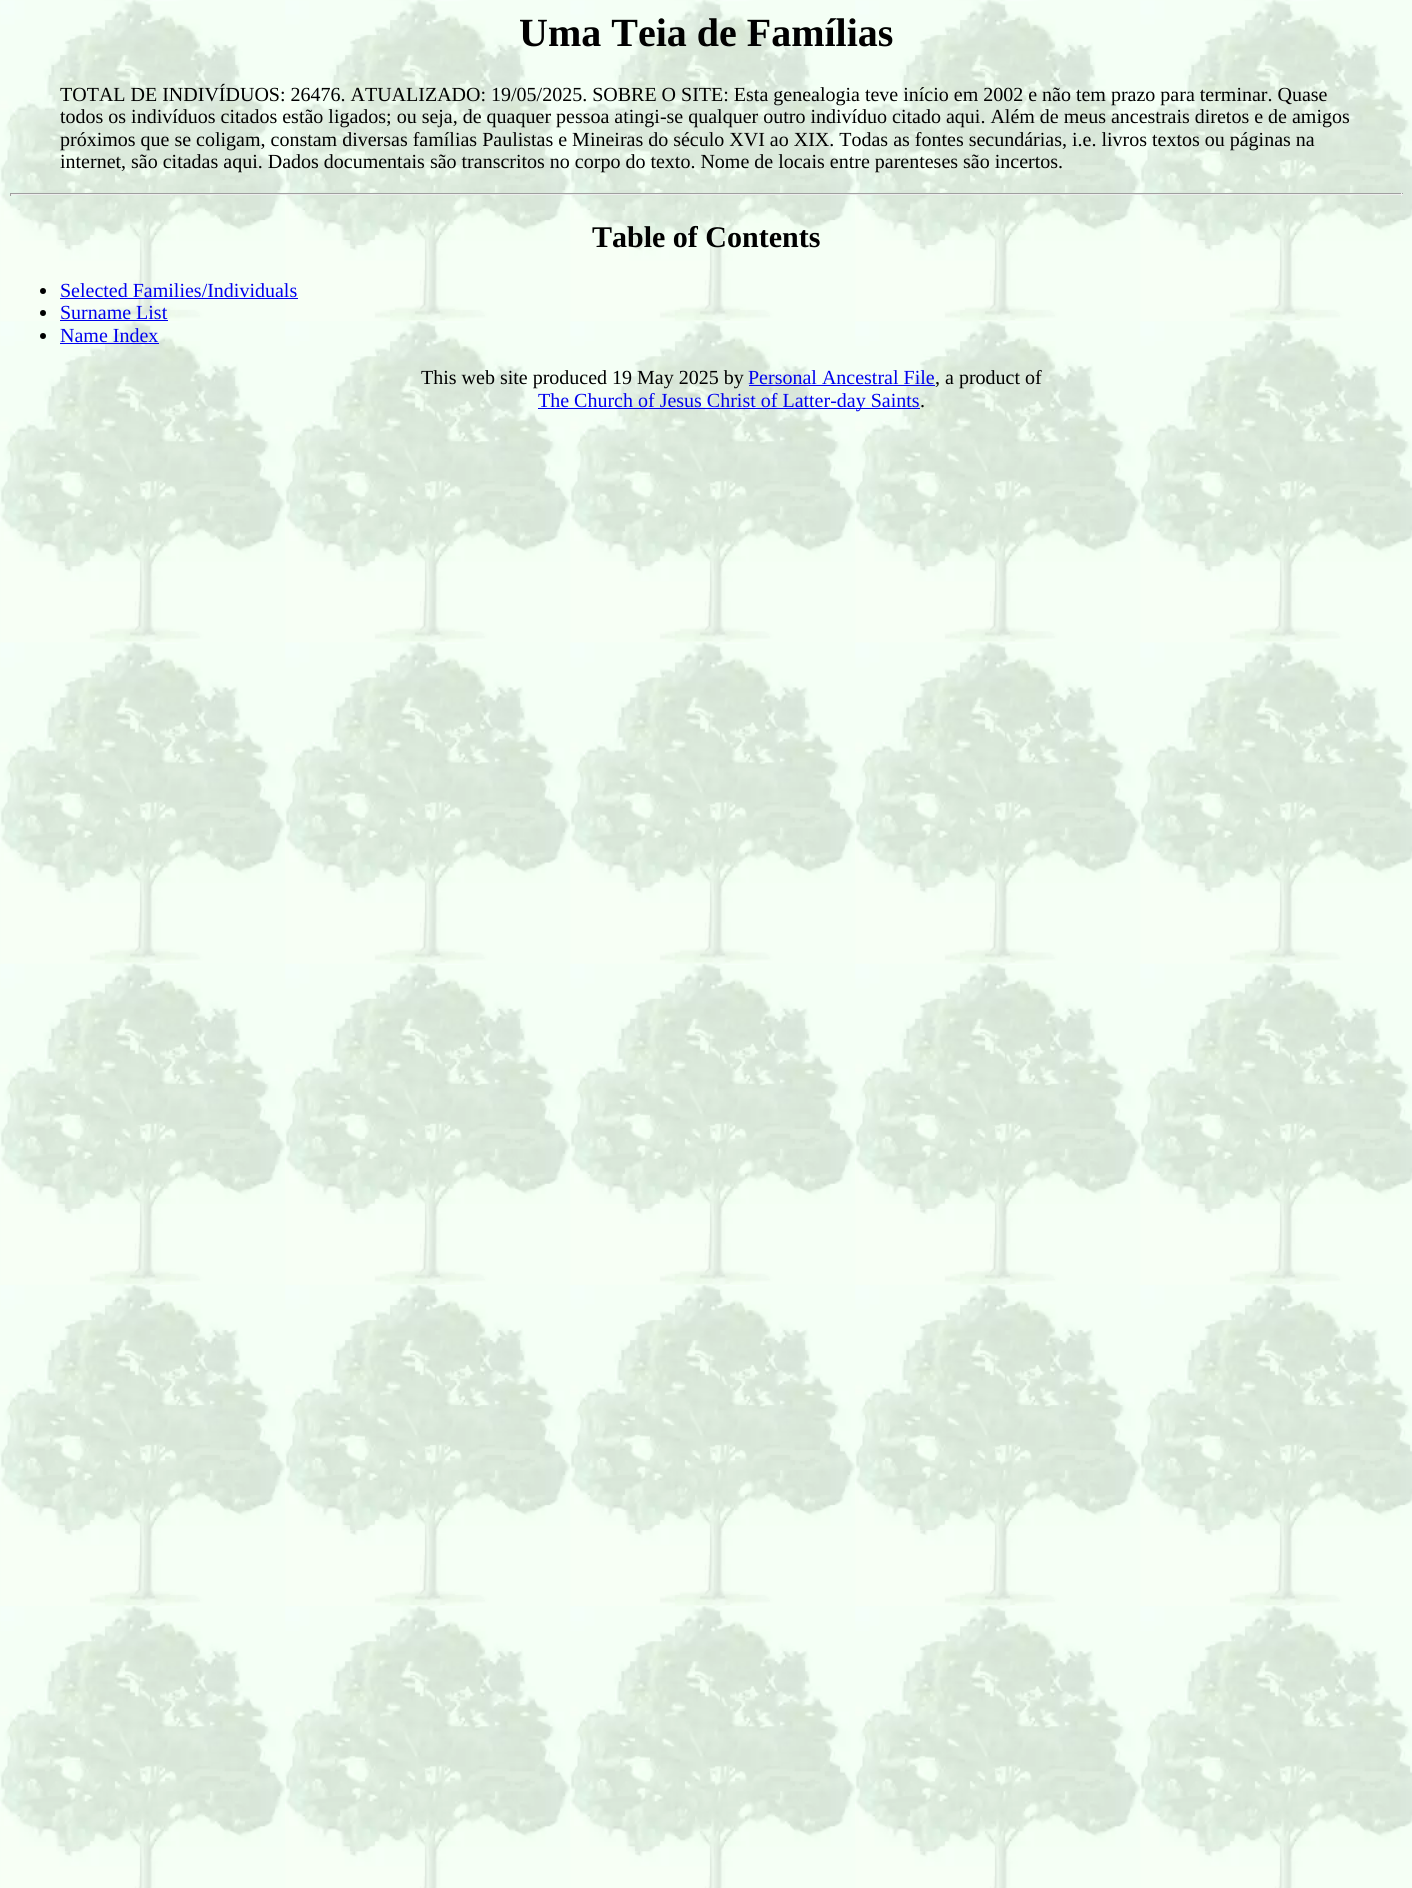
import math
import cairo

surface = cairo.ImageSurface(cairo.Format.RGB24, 1412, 1888)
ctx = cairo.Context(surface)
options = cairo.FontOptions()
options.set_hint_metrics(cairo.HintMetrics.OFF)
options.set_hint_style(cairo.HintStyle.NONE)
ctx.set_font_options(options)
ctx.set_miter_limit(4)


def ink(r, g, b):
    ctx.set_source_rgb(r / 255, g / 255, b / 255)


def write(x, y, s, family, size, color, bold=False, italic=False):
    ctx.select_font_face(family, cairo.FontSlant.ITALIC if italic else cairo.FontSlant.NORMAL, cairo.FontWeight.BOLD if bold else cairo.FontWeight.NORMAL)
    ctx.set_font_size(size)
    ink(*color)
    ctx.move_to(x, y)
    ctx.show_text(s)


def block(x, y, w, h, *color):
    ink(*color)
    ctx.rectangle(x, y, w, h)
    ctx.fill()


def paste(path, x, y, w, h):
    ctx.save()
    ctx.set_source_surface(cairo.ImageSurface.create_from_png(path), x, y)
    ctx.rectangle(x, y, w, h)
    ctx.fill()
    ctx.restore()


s1 = dict(family="Liberation Serif", size=40, color=(0, 0, 0), bold=True)
s2 = dict(family="Liberation Serif", size=20, color=(0, 0, 0))
s3 = dict(family="Liberation Serif", size=30, color=(0, 0, 0), bold=True)
s4 = dict(family="Liberation Serif", size=20, color=(0, 0, 238))

ink(255, 255, 255)
ctx.paint()
paste("pic1.png", 0, 0, 1412, 1888)
write(519, 46, "Uma Teia de Famílias", **s1)
write(60, 101, "TOTAL DE INDIVÍDUOS: 26476. ATUALIZADO: 19/05/2025. SOBRE O SITE: Esta genealogia teve início em 2002 e não tem prazo para terminar. Quase", **s2)
write(60, 123, "todos os indivíduos citados estão ligados; ou seja, de quaquer pessoa atingi-se qualquer outro indivíduo citado aqui. Além de meus ancestrais diretos e de amigos", **s2)
write(60, 146, "próximos que se coligam, constam diversas famílias Paulistas e Mineiras do século XVI ao XIX. Todas as fontes secundárias, i.e. livros textos ou páginas na", **s2)
write(60, 168, "internet, são citadas aqui. Dados documentais são transcritos no corpo do texto. Nome de locais entre parenteses são incertos.", **s2)
block(10, 193, 1393, 1, 159, 159, 159)
block(1401, 193, 1, 3, 238, 238, 238)
block(10, 194, 1393, 1, 238, 238, 238)
block(10, 193, 1, 3, 159, 159, 159)
write(592, 247, "Table of Contents", **s3)
ctx.new_path()
ctx.arc(43, 291, 3, 0, 2 * math.pi)
ctx.fill()
write(60, 297, "Selected Families/Individuals", **s4)
block(60, 298, 238, 1, 0, 0, 238)
ink(0, 0, 0)
ctx.new_path()
ctx.arc(43, 313, 3, 0, 2 * math.pi)
ctx.fill()
write(60, 319, "Surname List", **s4)
block(60, 320, 108, 1, 0, 0, 238)
ink(0, 0, 0)
ctx.new_path()
ctx.arc(43, 336, 3, 0, 2 * math.pi)
ctx.fill()
write(60, 342, "Name Index", **s4)
block(60, 343, 99, 1, 0, 0, 238)
write(421, 384, "This web site produced 19 May 2025 by", **s2)
write(748, 384, "Personal Ancestral File", **s4)
block(749, 385, 186, 1, 0, 0, 238)
write(935, 384, ", a product of", **s2)
block(538, 408, 382, 1, 0, 0, 238)
write(538, 407, "The Church of Jesus Christ of Latter-day Saints", **s4)
write(920, 407, ".", **s2)
surface.write_to_png("screenshot.png")
